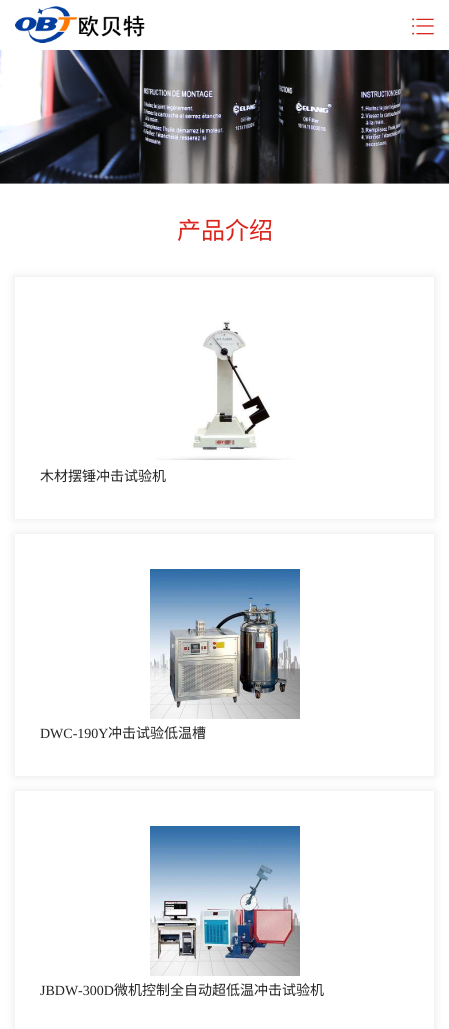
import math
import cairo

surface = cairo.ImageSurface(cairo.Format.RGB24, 449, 1029)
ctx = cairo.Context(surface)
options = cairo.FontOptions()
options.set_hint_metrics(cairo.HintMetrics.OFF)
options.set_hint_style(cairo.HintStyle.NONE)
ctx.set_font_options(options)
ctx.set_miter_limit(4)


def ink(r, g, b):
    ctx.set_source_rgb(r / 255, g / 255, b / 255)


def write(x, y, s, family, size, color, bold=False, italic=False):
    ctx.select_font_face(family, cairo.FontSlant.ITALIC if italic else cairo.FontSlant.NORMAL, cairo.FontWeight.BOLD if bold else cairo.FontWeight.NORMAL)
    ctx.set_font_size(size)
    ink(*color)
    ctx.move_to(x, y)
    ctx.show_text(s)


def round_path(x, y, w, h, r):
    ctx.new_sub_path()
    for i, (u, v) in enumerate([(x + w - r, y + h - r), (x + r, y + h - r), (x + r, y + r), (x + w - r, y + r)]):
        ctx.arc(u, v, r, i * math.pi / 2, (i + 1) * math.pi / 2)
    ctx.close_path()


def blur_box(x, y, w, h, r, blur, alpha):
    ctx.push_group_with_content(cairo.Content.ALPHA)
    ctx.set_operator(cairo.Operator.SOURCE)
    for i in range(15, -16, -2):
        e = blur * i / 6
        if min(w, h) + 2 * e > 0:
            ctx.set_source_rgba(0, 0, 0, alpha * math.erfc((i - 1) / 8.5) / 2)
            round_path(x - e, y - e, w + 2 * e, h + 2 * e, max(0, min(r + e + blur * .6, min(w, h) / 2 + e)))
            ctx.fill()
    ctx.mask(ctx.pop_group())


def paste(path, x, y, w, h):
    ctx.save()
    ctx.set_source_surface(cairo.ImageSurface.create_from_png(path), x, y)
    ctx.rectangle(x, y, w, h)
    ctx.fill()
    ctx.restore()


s1 = dict(family="Noto Sans CJK SC", size=24, color=(218, 37, 28))
s2 = dict(family="Noto Sans CJK SC", size=14, color=(36, 36, 36))
s3 = dict(family="Liberation Serif", size=14, color=(36, 36, 36))

ink(255, 255, 255)
ctx.paint()
paste("pic1.png", 15, 6, 130, 37)
paste("pic2.png", 412, 18, 22, 17)
paste("pic3.png", 0, 50, 449, 134)
write(177, 239, "产品介绍", **s1)
ctx.save()
ctx.set_fill_rule(cairo.FillRule.EVEN_ODD)
ctx.new_path()
ctx.move_to(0, 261)
ctx.line_to(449, 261)
ctx.line_to(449, 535)
ctx.line_to(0, 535)
ctx.close_path()
ctx.move_to(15, 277)
ctx.line_to(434, 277)
ctx.line_to(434, 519)
ctx.line_to(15, 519)
ctx.close_path()
ctx.clip()
ink(0, 0, 0)
blur_box(15, 277, 419, 242, 0, 5, 0.1)
ctx.restore()
paste("pic4.png", 155, 319, 140, 141)
write(40, 481, "木材摆锤冲击试验机", **s2)
ctx.save()
ctx.set_fill_rule(cairo.FillRule.EVEN_ODD)
ctx.new_path()
ctx.move_to(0, 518)
ctx.line_to(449, 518)
ctx.line_to(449, 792)
ctx.line_to(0, 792)
ctx.close_path()
ctx.move_to(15, 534)
ctx.line_to(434, 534)
ctx.line_to(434, 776)
ctx.line_to(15, 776)
ctx.close_path()
ctx.clip()
ink(0, 0, 0)
blur_box(15, 534, 419, 242, 0, 5, 0.1)
ctx.restore()
paste("pic5.png", 150, 569, 150, 150)
write(40, 738, "DWC-190Y", **s3)
write(108, 738, "冲击试验低温槽", **s2)
ctx.save()
ctx.set_fill_rule(cairo.FillRule.EVEN_ODD)
ctx.new_path()
ctx.move_to(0, 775)
ctx.line_to(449, 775)
ctx.line_to(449, 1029)
ctx.line_to(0, 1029)
ctx.close_path()
ctx.move_to(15, 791)
ctx.line_to(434, 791)
ctx.line_to(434, 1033)
ctx.line_to(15, 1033)
ctx.close_path()
ctx.clip()
ink(0, 0, 0)
blur_box(15, 791, 419, 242, 0, 5, 0.1)
ctx.restore()
paste("pic6.png", 150, 826, 150, 150)
write(40, 995, "JBDW-300D", **s3)
write(114, 995, "微机控制全自动超低温冲击试验机", **s2)
surface.write_to_png("screenshot.png")
